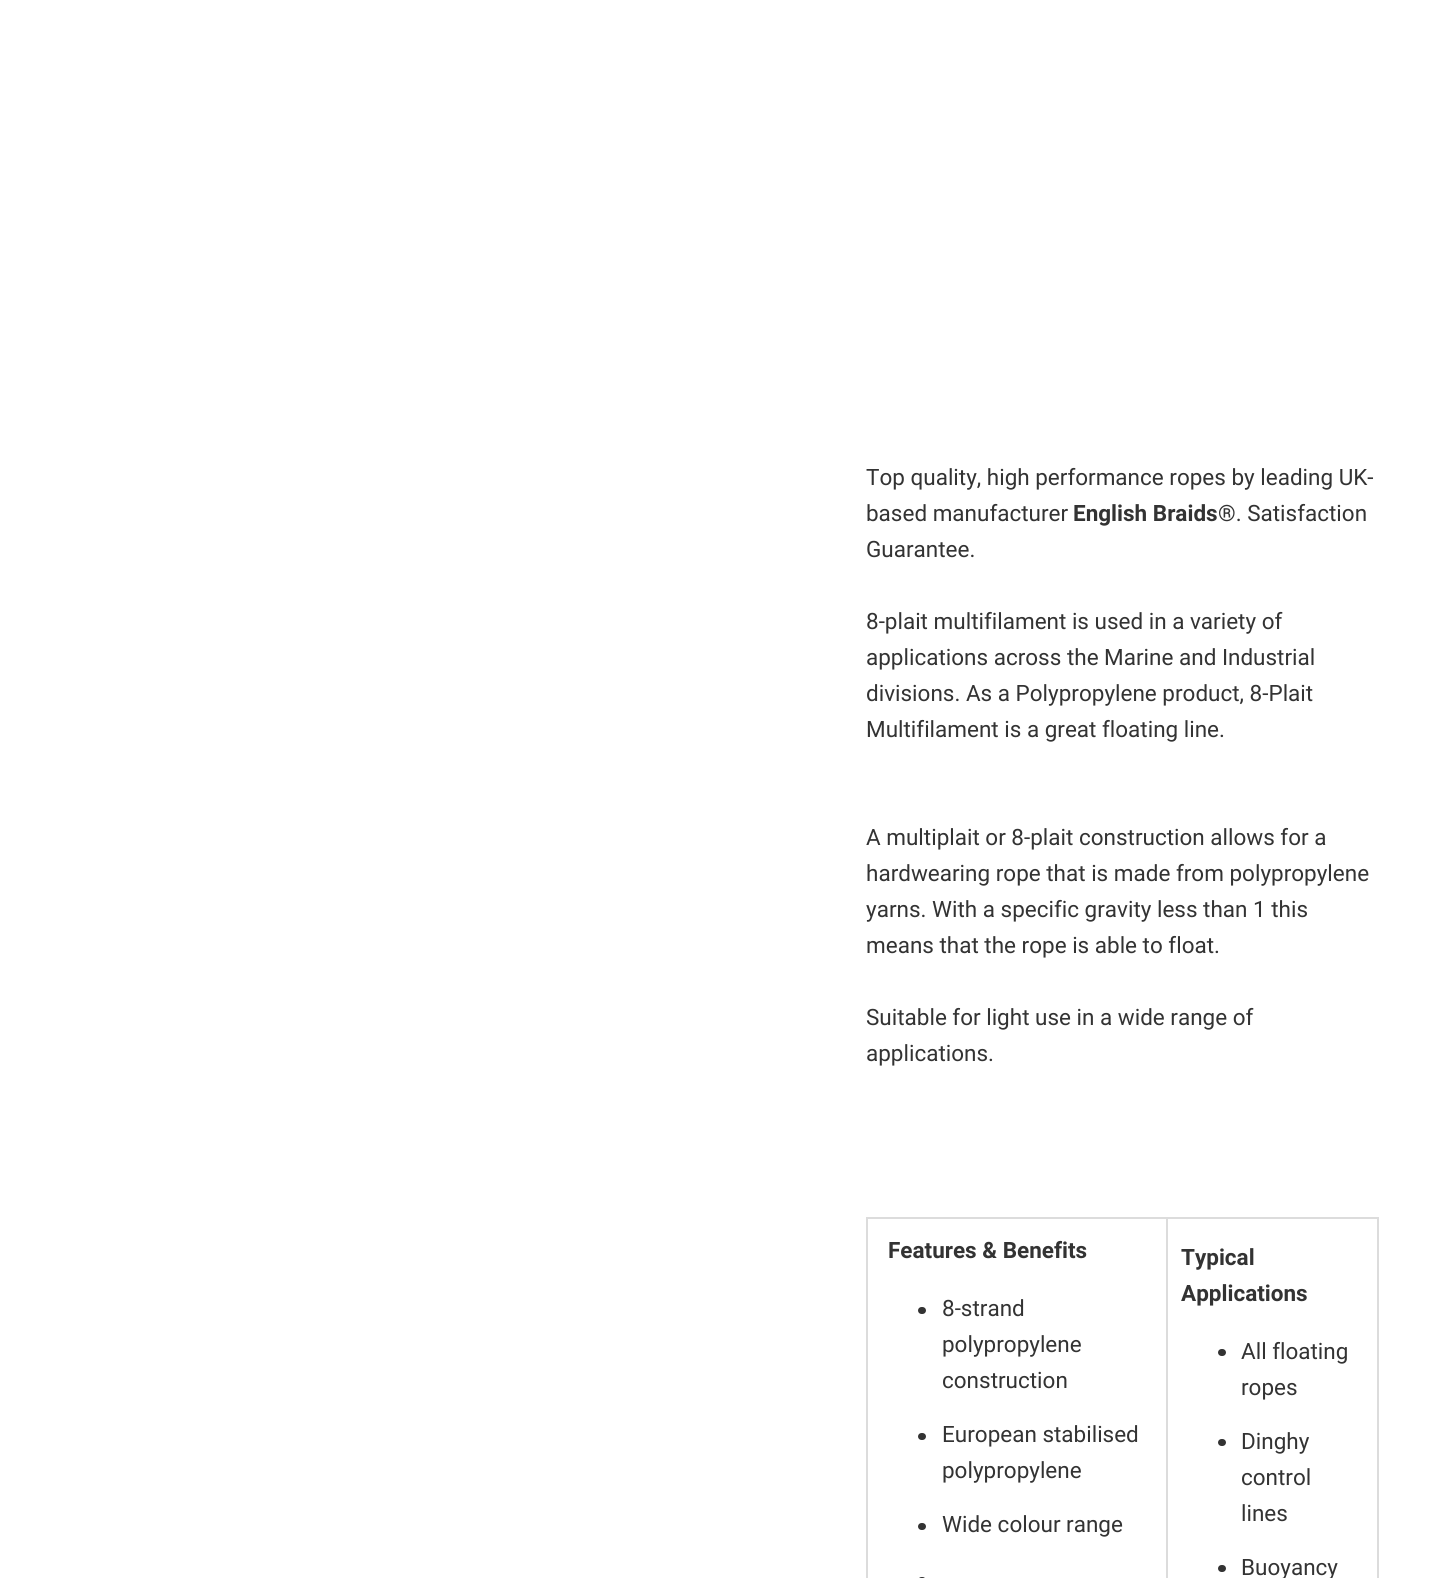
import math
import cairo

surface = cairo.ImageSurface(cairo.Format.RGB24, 1429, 1578)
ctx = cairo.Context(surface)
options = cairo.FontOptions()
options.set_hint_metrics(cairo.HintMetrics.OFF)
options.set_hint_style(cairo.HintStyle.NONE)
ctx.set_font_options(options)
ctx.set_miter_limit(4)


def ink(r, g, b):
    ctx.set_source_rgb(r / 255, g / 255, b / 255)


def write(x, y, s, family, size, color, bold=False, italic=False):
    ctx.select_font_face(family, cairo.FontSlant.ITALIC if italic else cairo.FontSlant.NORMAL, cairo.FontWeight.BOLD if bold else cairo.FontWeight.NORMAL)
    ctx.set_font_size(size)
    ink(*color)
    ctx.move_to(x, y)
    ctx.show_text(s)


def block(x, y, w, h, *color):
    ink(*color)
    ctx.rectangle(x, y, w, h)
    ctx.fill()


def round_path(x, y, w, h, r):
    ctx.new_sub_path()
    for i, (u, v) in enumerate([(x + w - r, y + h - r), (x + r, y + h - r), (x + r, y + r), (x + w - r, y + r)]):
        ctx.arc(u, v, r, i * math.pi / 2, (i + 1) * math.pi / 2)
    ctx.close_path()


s1 = dict(family="Roboto", size=22.5, color=(51, 51, 51))
s2 = dict(family="Roboto", size=22.5, color=(51, 51, 51), bold=True)

ink(255, 255, 255)
ctx.paint()
write(866, 485, "Top quality, high performance ropes by leading UK-", **s1)
write(866, 521, "based manufacturer", **s1)
write(1073, 521, "English Braids", **s2)
write(1218, 521, "®. Satisfaction", **s1)
write(866, 557, "Guarantee.", **s1)
write(866, 629, "8-plait multifilament is used in a variety of", **s1)
write(866, 665, "applications across the Marine and Industrial", **s1)
write(866, 701, "divisions. As a Polypropylene product, 8-Plait", **s1)
write(866, 737, "Multifilament is a great floating line.", **s1)
write(866, 845, "A multiplait or 8-plait construction allows for a", **s1)
write(866, 881, "hardwearing rope that is made from polypropylene", **s1)
write(866, 917, "yarns. With a specific gravity less than 1 this", **s1)
write(866, 953, "means that the rope is able to float.", **s1)
write(866, 1025, "Suitable for light use in a wide range of", **s1)
write(866, 1061, "applications.", **s1)
block(866, 1217, 513, 2, 220, 220, 220)
block(1166, 1217, 2, 361, 220, 220, 220)
block(866, 1217, 2, 361, 220, 220, 220)
write(888, 1258, "Features & Benefits", **s2)
round_path(918, 1307, 8, 7, 3.5)
ctx.fill()
write(942, 1316, "8-strand", **s1)
write(942, 1352, "polypropylene", **s1)
write(942, 1388, "construction", **s1)
round_path(918, 1433, 8, 7, 3.5)
ctx.fill()
write(942, 1442, "European stabilised", **s1)
write(942, 1478, "polypropylene", **s1)
round_path(918, 1523, 8, 7, 3.5)
ctx.fill()
write(942, 1532, "Wide colour range", **s1)
round_path(918, 1577, 8, 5, 3.5)
ctx.fill()
block(1377, 1217, 2, 361, 220, 220, 220)
write(1181, 1265, "Typical", **s2)
write(1181, 1301, "Applications", **s2)
round_path(1218, 1349, 8, 7, 3.5)
ctx.fill()
write(1241, 1359, "All floating", **s1)
write(1241, 1395, "ropes", **s1)
round_path(1218, 1439, 8, 7, 3.5)
ctx.fill()
write(1241, 1449, "Dinghy", **s1)
write(1241, 1485, "control", **s1)
write(1241, 1521, "lines", **s1)
round_path(1218, 1565, 8, 7, 3.5)
ctx.fill()
write(1241, 1575, "Buoyancy", **s1)
surface.write_to_png("screenshot.png")
